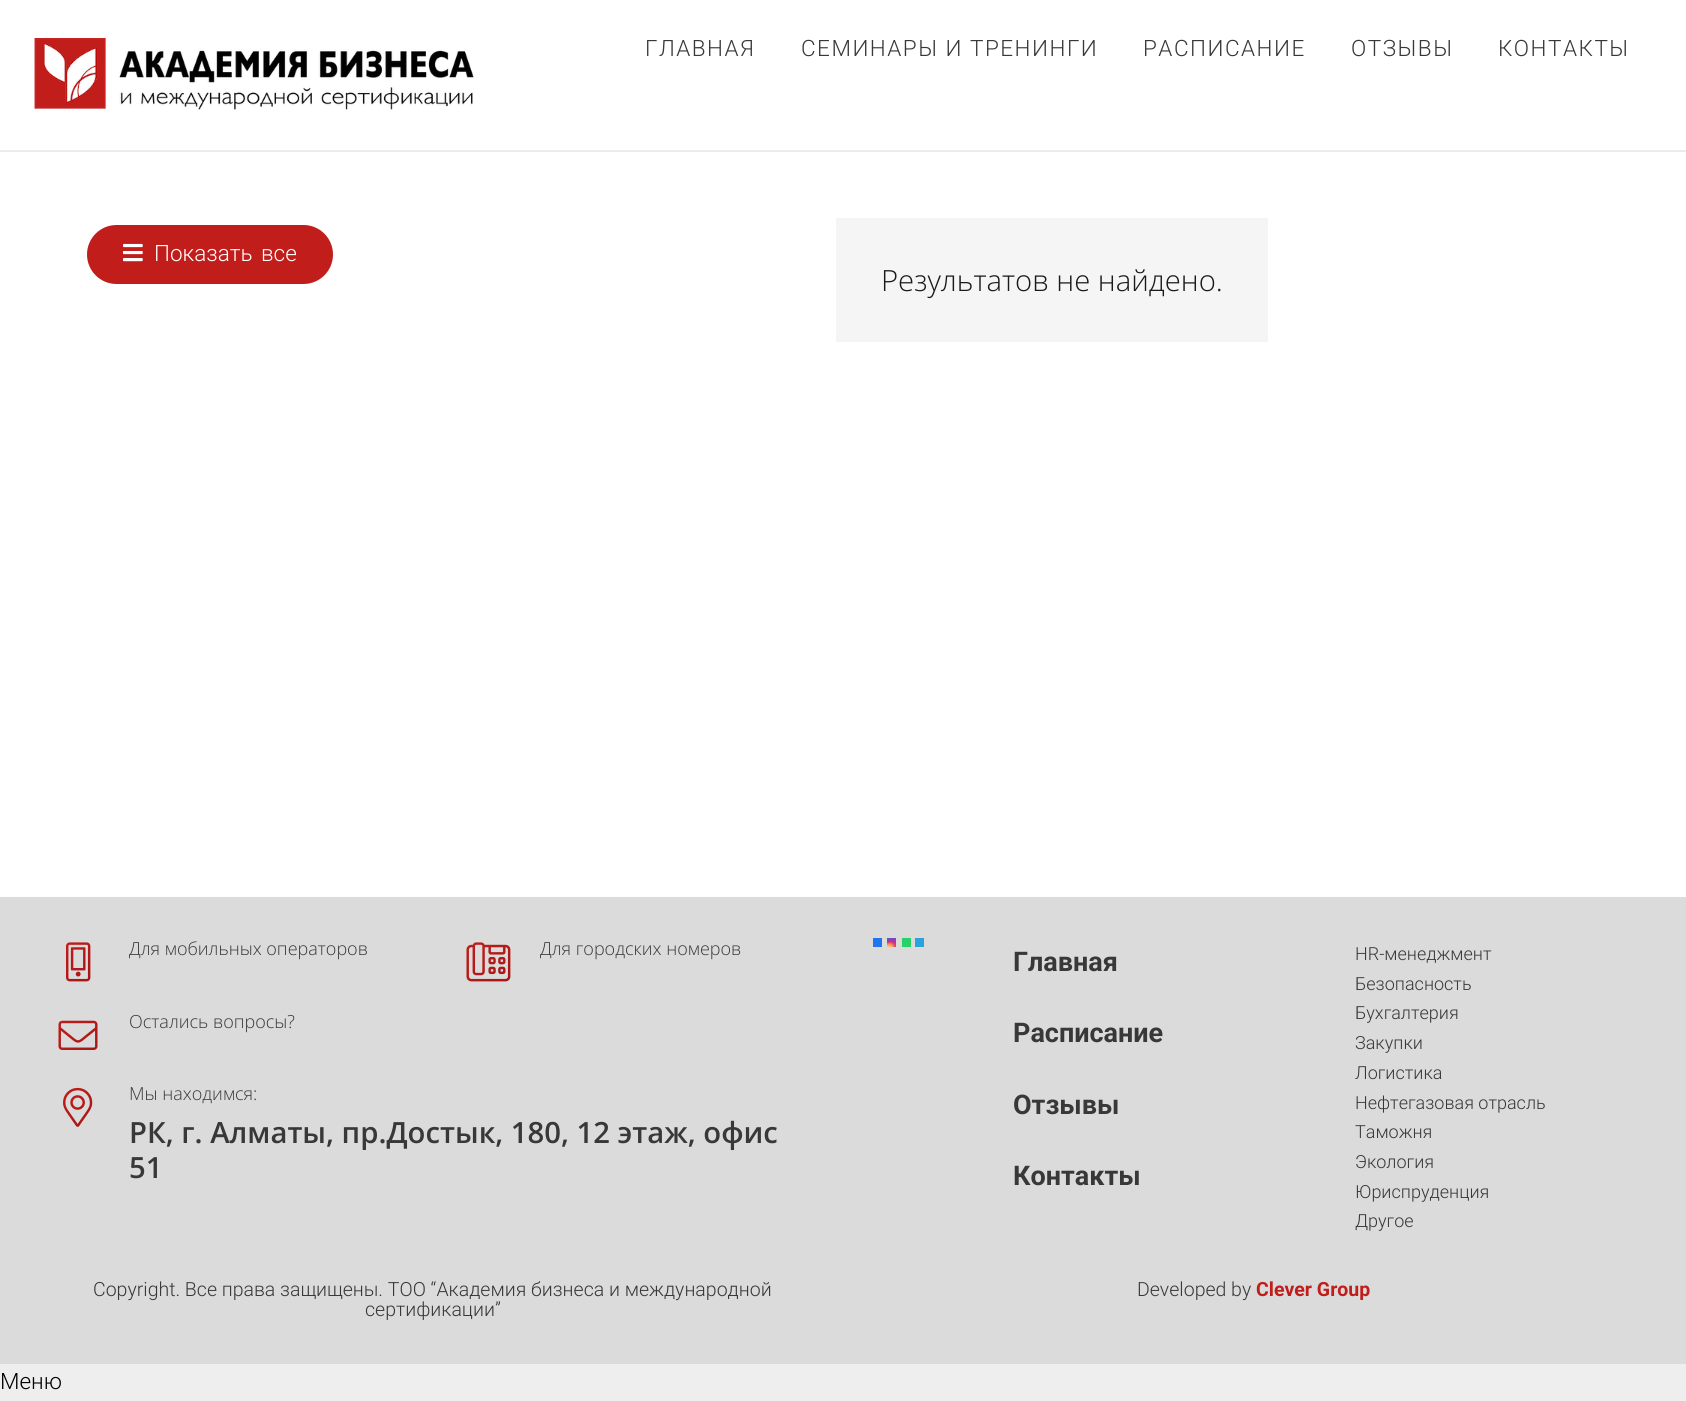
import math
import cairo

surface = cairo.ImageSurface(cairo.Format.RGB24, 1686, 1401)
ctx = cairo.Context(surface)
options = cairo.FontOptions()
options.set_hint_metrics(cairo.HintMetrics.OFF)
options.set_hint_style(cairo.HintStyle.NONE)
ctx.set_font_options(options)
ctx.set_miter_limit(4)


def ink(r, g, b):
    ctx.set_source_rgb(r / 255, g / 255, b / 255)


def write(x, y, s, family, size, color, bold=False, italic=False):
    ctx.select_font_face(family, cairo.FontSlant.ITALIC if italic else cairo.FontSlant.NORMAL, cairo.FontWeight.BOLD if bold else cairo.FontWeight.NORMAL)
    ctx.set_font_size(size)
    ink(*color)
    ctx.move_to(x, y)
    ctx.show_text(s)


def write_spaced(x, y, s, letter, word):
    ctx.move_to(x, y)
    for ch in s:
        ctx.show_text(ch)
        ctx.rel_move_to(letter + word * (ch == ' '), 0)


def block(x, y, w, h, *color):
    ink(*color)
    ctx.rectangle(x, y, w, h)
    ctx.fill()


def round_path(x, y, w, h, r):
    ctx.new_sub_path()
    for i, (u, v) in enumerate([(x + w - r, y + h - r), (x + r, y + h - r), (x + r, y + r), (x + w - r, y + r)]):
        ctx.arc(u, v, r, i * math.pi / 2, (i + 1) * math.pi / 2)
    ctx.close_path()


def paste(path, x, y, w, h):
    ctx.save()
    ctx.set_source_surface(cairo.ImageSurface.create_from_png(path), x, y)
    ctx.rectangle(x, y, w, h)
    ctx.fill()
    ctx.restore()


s1 = dict(family="Open Sans Light", size=29.25, color=(26, 26, 26))
s2 = dict(family="Open Sans Light", size=18, color=(56, 56, 56))
s3 = dict(family="Open Sans SemiBold", size=29.25, color=(56, 56, 56))
s4 = dict(family="Roboto", size=27, color=(56, 56, 56), bold=True)
s5 = dict(family="Roboto Light", size=18, color=(56, 56, 56))
s6 = dict(family="Roboto Light", size=19.5, color=(56, 56, 56))
s7 = dict(family="Roboto", size=19.5, color=(192, 29, 27), bold=True)
s8 = dict(family="Roboto Light", size=22.5, color=(0, 0, 0))

ink(238, 238, 238)
ctx.paint()
block(0, 0, 1686, 897, 255, 255, 255)
block(0, 150, 1686, 2, 235, 235, 235)
paste("pic1.png", 34, 38, 440, 72)
ctx.select_font_face("Roboto Light")
ctx.set_font_size(22.5)
ink(56, 56, 56)
write_spaced(645, 56, "ГЛАВНАЯ", 1.5, 0)
write_spaced(801, 56, "СЕМИНАРЫ И ТРЕНИНГИ", 1.5, 0)
write_spaced(1143, 56, "РАСПИСАНИЕ", 1.5, 0)
write_spaced(1351, 56, "ОТЗЫВЫ", 1.5, 0)
write_spaced(1498, 56, "КОНТАКТЫ", 1.5, 0)
ink(192, 29, 27)
round_path(87, 225, 246, 59, 29.5)
ctx.fill()
paste("pic2.png", 123, 243, 20, 19)
ink(255, 255, 255)
write_spaced(154, 261, "Показать все", 0, 3)
block(836, 218, 432, 124, 245, 245, 245)
write(881, 291, "Результатов не найдено.", **s1)
block(0, 897, 1686, 467, 219, 219, 219)
paste("pic3.png", 66, 942, 25, 40)
write(129, 955, "Для мобильных операторов", **s2)
paste("pic4.png", 466, 942, 45, 40)
write(540, 955, "Для городских номеров", **s2)
paste("pic5.png", 58, 1020, 40, 30)
write(129, 1028, "Остались вопросы?", **s2)
paste("pic6.png", 63, 1087, 30, 40)
write(129, 1100, "Мы находимся:", **s2)
write(129, 1143, "РК, г. Алматы, пр.Достык, 180, 12 этаж, офис", **s3)
write(129, 1178, "51", **s3)
block(873, 938, 9, 9, 30, 119, 240)
gradient = cairo.LinearGradient(891, 938, 891, 947)
gradient.add_color_stop_rgba(0, 0.396, 0.349, 0.792, 1)
gradient.add_color_stop_rgba(0.3, 0.737, 0.192, 0.561, 1)
gradient.add_color_stop_rgba(0.5, 0.894, 0.18, 0.4, 1)
gradient.add_color_stop_rgba(0.7, 0.98, 0.325, 0.196, 1)
gradient.add_color_stop_rgba(1, 1, 0.863, 0.502, 1)
ctx.set_source(gradient)
ctx.rectangle(887, 938, 9, 9)
ctx.fill()
gradient = cairo.RadialGradient(896, 947, 0, 896, 947, 13)
gradient.add_color_stop_rgba(0, 0.851, 0.192, 0.478, 1)
gradient.add_color_stop_rgba(1, 0.851, 0.192, 0.478, 0)
ctx.set_source(gradient)
ctx.rectangle(887, 938, 9, 9)
ctx.fill()
gradient = cairo.RadialGradient(0, 0, 0, 0, 0, 1)
gradient.set_matrix(cairo.Matrix(1 / 7.6, 0, 0, 1 / 15, -1 * 892 / 7.6, -1 * 936 / 15))
gradient.add_color_stop_rgba(0, 0.537, 0.239, 0.761, 1)
gradient.add_color_stop_rgba(0.5, 0.537, 0.239, 0.761, 0)
ctx.set_source(gradient)
ctx.rectangle(889, 938, 6, 5)
ctx.fill()
gradient = cairo.RadialGradient(896, 938, 0, 896, 938, 13)
gradient.add_color_stop_rgba(0, 0.537, 0.239, 0.761, 1)
gradient.add_color_stop_rgba(0.5, 0.537, 0.239, 0.761, 0)
ctx.set_source(gradient)
ctx.rectangle(890, 938, 6, 6)
ctx.fill()
gradient = cairo.RadialGradient(0, 0, 0, 0, 0, 1)
gradient.set_matrix(cairo.Matrix(1 / 10, 0, 0, 1 / 19, -1 * 888 / 10, -1 * 933 / 19))
gradient.add_color_stop_rgba(0, 0.322, 0.345, 0.812, 1)
gradient.add_color_stop_rgba(0.5, 0.322, 0.345, 0.812, 0)
ctx.set_source(gradient)
ctx.rectangle(887, 938, 5, 4)
ctx.fill()
gradient = cairo.RadialGradient(0, 0, 0, 0, 0, 1)
gradient.set_matrix(cairo.Matrix(1 / 13, 0, 0, 1 / 16, -1 * 887 / 13, -1 * 935 / 16))
gradient.add_color_stop_rgba(0, 0.322, 0.345, 0.812, 1)
gradient.add_color_stop_rgba(0.5, 0.322, 0.345, 0.812, 0)
ctx.set_source(gradient)
ctx.rectangle(887, 938, 6, 5)
ctx.fill()
gradient = cairo.RadialGradient(887, 950, 0, 887, 950, 15)
gradient.add_color_stop_rgba(0, 0.996, 0.855, 0.494, 1)
gradient.add_color_stop_rgba(0.5, 0.996, 0.855, 0.494, 0)
ctx.set_source(gradient)
ctx.rectangle(887, 943, 6, 4)
ctx.fill()
gradient = cairo.RadialGradient(890, 947, 0, 890, 947, 11)
gradient.add_color_stop_rgba(0, 0.996, 0.773, 0.392, 1)
gradient.add_color_stop_rgba(0.5, 0.996, 0.773, 0.392, 0)
ctx.set_source(gradient)
ctx.rectangle(887, 942, 8, 5)
ctx.fill()
block(902, 938, 9, 9, 37, 211, 102)
block(915, 938, 9, 9, 43, 162, 219)
write(1013, 971, "Главная", **s4)
write(1013, 1042, "Расписание", **s4)
write(1013, 1114, "Отзывы", **s4)
write(1013, 1185, "Контакты", **s4)
write(1355, 960, "HR-менеджмент", **s5)
write(1355, 990, "Безопасность", **s5)
write(1355, 1019, "Бухгалтерия", **s5)
write(1355, 1049, "Закупки", **s5)
write(1355, 1079, "Логистика", **s5)
write(1355, 1109, "Нефтегазовая отрасль", **s5)
write(1355, 1138, "Таможня", **s5)
write(1355, 1168, "Экология", **s5)
write(1355, 1198, "Юриспруденция", **s5)
write(1355, 1227, "Другое", **s5)
write(93, 1296, "Copyright. Все права защищены. ТОО “Академия бизнеса и международной", **s6)
write(365, 1316, "сертификации”", **s6)
write(1137, 1296, "Developed by", **s6)
write(1256, 1296, "Clever Group", **s7)
write(0, 1389, "Меню", **s8)
surface.write_to_png("screenshot.png")
